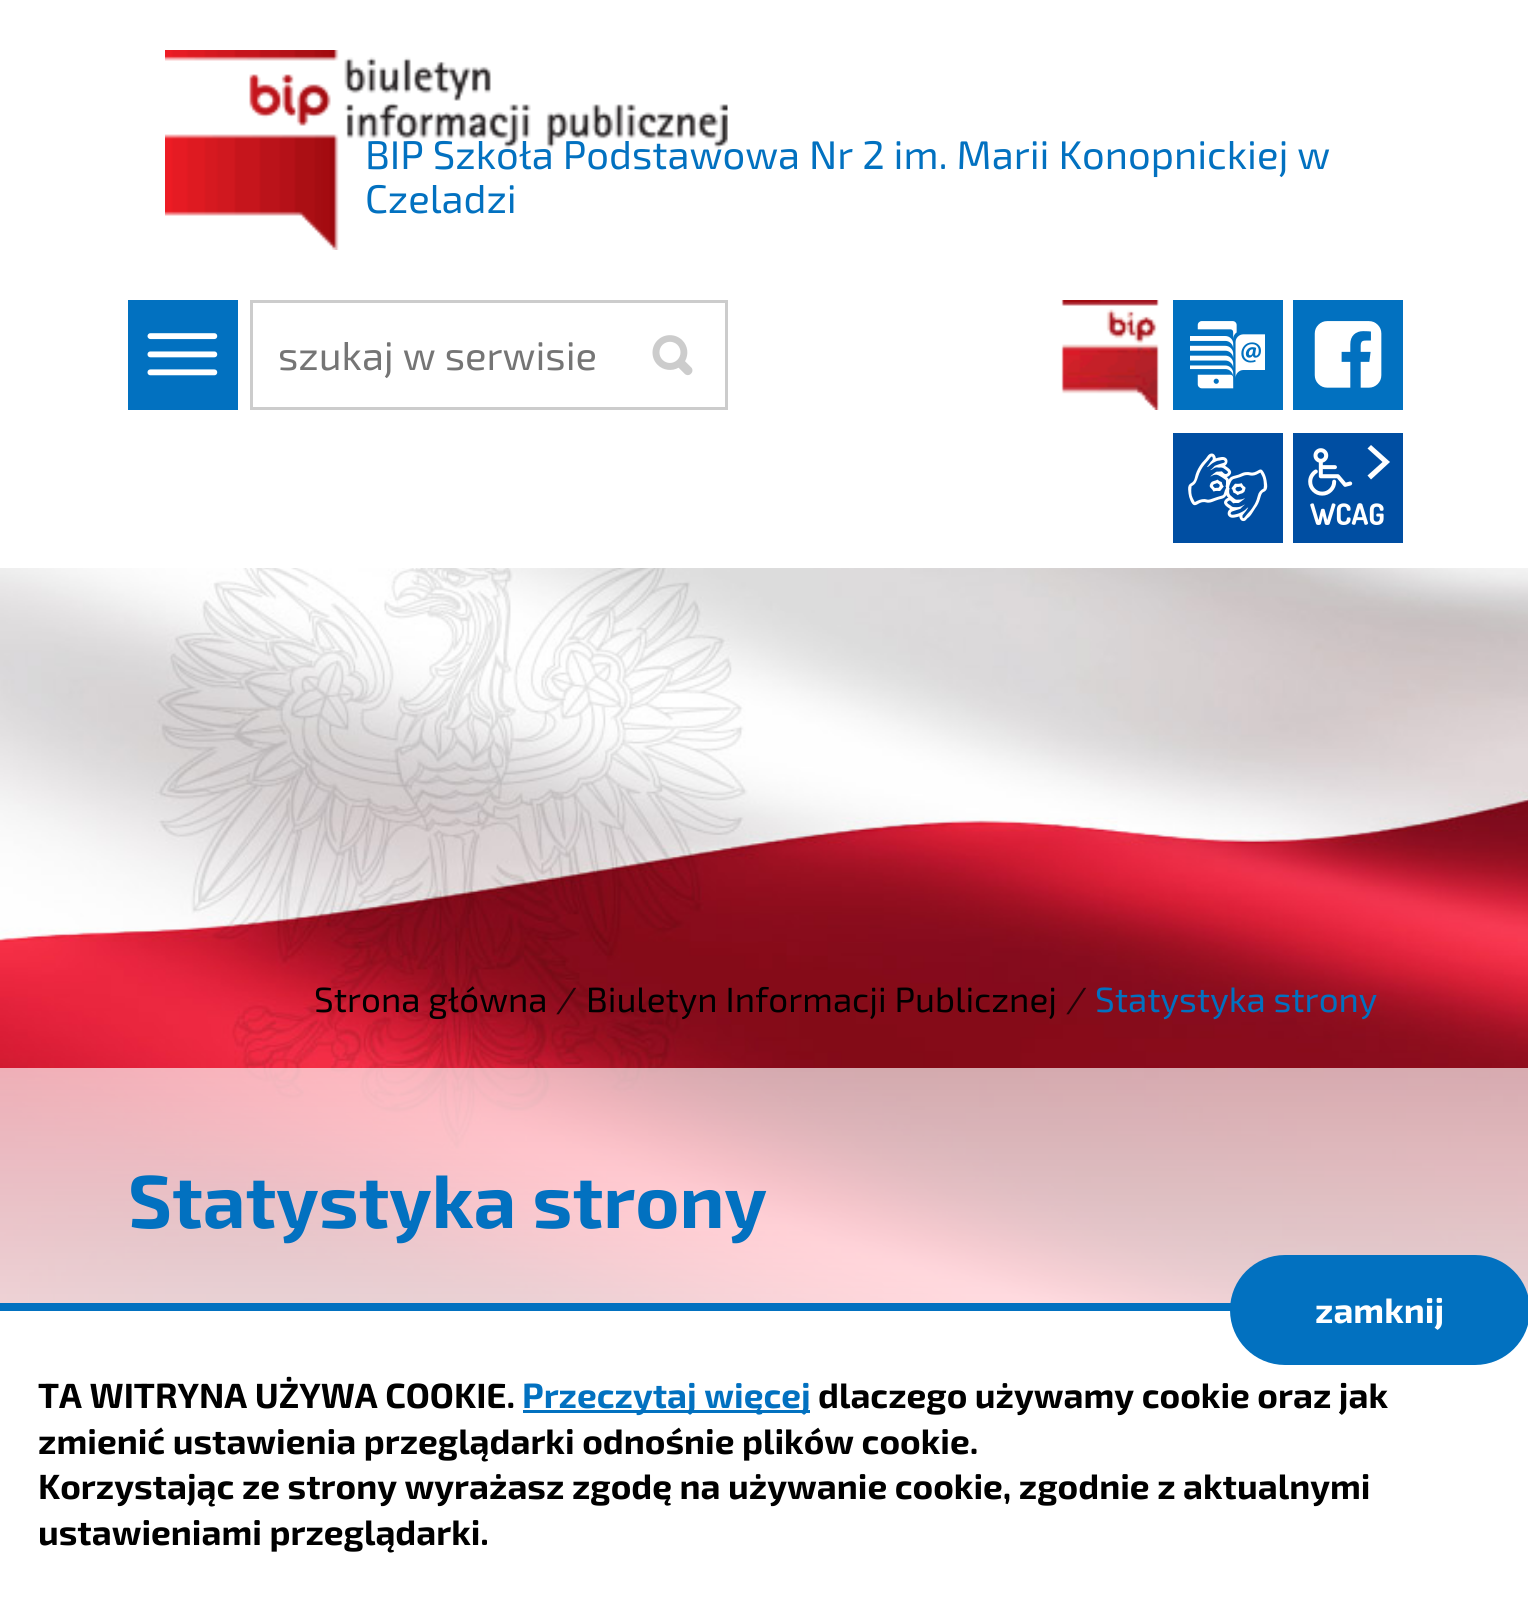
import math
import cairo

surface = cairo.ImageSurface(cairo.Format.RGB24, 1528, 1617)
ctx = cairo.Context(surface)
options = cairo.FontOptions()
options.set_hint_metrics(cairo.HintMetrics.OFF)
options.set_hint_style(cairo.HintStyle.NONE)
ctx.set_font_options(options)
ctx.set_miter_limit(4)


def ink(r, g, b):
    ctx.set_source_rgb(r / 255, g / 255, b / 255)


def write(x, y, s, family, size, color, bold=False, italic=False):
    ctx.select_font_face(family, cairo.FontSlant.ITALIC if italic else cairo.FontSlant.NORMAL, cairo.FontWeight.BOLD if bold else cairo.FontWeight.NORMAL)
    ctx.set_font_size(size)
    ink(*color)
    ctx.move_to(x, y)
    ctx.show_text(s)


def block(x, y, w, h, *color):
    ink(*color)
    ctx.rectangle(x, y, w, h)
    ctx.fill()


def round_path(x, y, w, h, r):
    ctx.new_sub_path()
    for i, (u, v) in enumerate([(x + w - r, y + h - r), (x + r, y + h - r), (x + r, y + r), (x + w - r, y + r)]):
        ctx.arc(u, v, r, i * math.pi / 2, (i + 1) * math.pi / 2)
    ctx.close_path()


def paste(path, x, y, w, h):
    ctx.save()
    ctx.set_source_surface(cairo.ImageSurface.create_from_png(path), x, y)
    ctx.rectangle(x, y, w, h)
    ctx.fill()
    ctx.restore()


s1 = dict(family="Exo 2", size=40, color=(2, 113, 192))
s2 = dict(family="Exo 2", size=40, color=(117, 117, 117))
s3 = dict(family="Exo 2", size=35, color=(0, 0, 0))
s4 = dict(family="Exo 2", size=35, color=(35, 3, 7), italic=True)
s5 = dict(family="Exo 2", size=35, color=(2, 113, 192))
s6 = dict(family="Exo 2", size=75, color=(2, 113, 192), bold=True)
s7 = dict(family="Exo 2", size=35, color=(255, 255, 255), bold=True)
s8 = dict(family="Exo 2", size=35, color=(0, 0, 0), bold=True)
s9 = dict(family="Exo 2", size=35, color=(2, 113, 192), bold=True)

ink(255, 255, 255)
ctx.paint()
paste("pic1.png", 165, 50, 563, 200)
write(365, 169, "BIP Szkoła Podstawowa Nr 2 im. Marii Konopnickiej w", **s1)
write(365, 213, "Czeladzi", **s1)
block(128, 300, 110, 110, 2, 113, 192)
paste("pic2.png", 147, 333, 71, 43)
ctx.rectangle(251.5, 301.5, 475, 107)
ink(204, 204, 204)
ctx.set_line_width(3)
ctx.stroke()
write(278, 370, "szukaj w serwisie", **s2)
paste("pic3.png", 652, 335, 41, 41)
paste("pic4.png", 1061, 300, 98, 110)
block(1173, 300, 110, 110, 2, 113, 192)
paste("pic5.png", 1190, 321, 75, 68)
block(1293, 300, 110, 110, 2, 113, 192)
paste("pic6.png", 1314, 321, 68, 67)
block(1173, 433, 110, 110, 0, 78, 162)
paste("pic7.png", 1188, 453, 80, 69)
block(1293, 433, 110, 110, 0, 78, 162)
paste("pic8.png", 1308, 448, 76, 77)
ink(255, 255, 255)
ctx.new_path()
ctx.move_to(1371, 479.5)
ctx.line_to(1390, 462)
ctx.line_to(1371, 445)
ctx.line_to(1367.5, 448.5)
ctx.line_to(1382.5, 462)
ctx.line_to(1367.5, 475.5)
ctx.close_path()
ctx.fill()
paste("pic9.png", 0, 568, 1528, 735)
write(314, 1012, "Strona główna", **s3)
write(557, 1012, "/", **s4)
write(586, 1012, "Biuletyn Informacji Publicznej", **s3)
write(1067, 1012, "/", **s4)
write(1095, 1012, "Statystyka strony", **s5)
gradient = cairo.LinearGradient(765, 1068, 765, 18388)
gradient.add_color_stop_rgba(0, 1, 1, 1, 0.65)
gradient.add_color_stop_rgba(0.03, 1, 1, 1, 1)
ctx.set_source(gradient)
ctx.rectangle(0, 1068, 1528, 235)
ctx.fill()
write(128, 1228, "Statystyka strony", **s6)
block(0, 1303, 1231, 8, 2, 113, 192)
round_path(1230, 1255, 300, 110, 55)
ctx.fill()
write(1315, 1323, "zamknij", **s7)
write(38, 1408, "TA WITRYNA UŻYWA COOKIE.", **s8)
block(523, 1410, 287, 3, 2, 113, 192)
write(522, 1408, "Przeczytaj więcej", **s9)
write(818, 1408, "dlaczego używamy cookie oraz jak", **s8)
write(38, 1454, "zmienić ustawienia przeglądarki odnośnie plików cookie.", **s8)
write(38, 1499, "Korzystając ze strony wyrażasz zgodę na używanie cookie, zgodnie z aktualnymi", **s8)
write(38, 1545, "ustawieniami przeglądarki.", **s8)
surface.write_to_png("screenshot.png")
